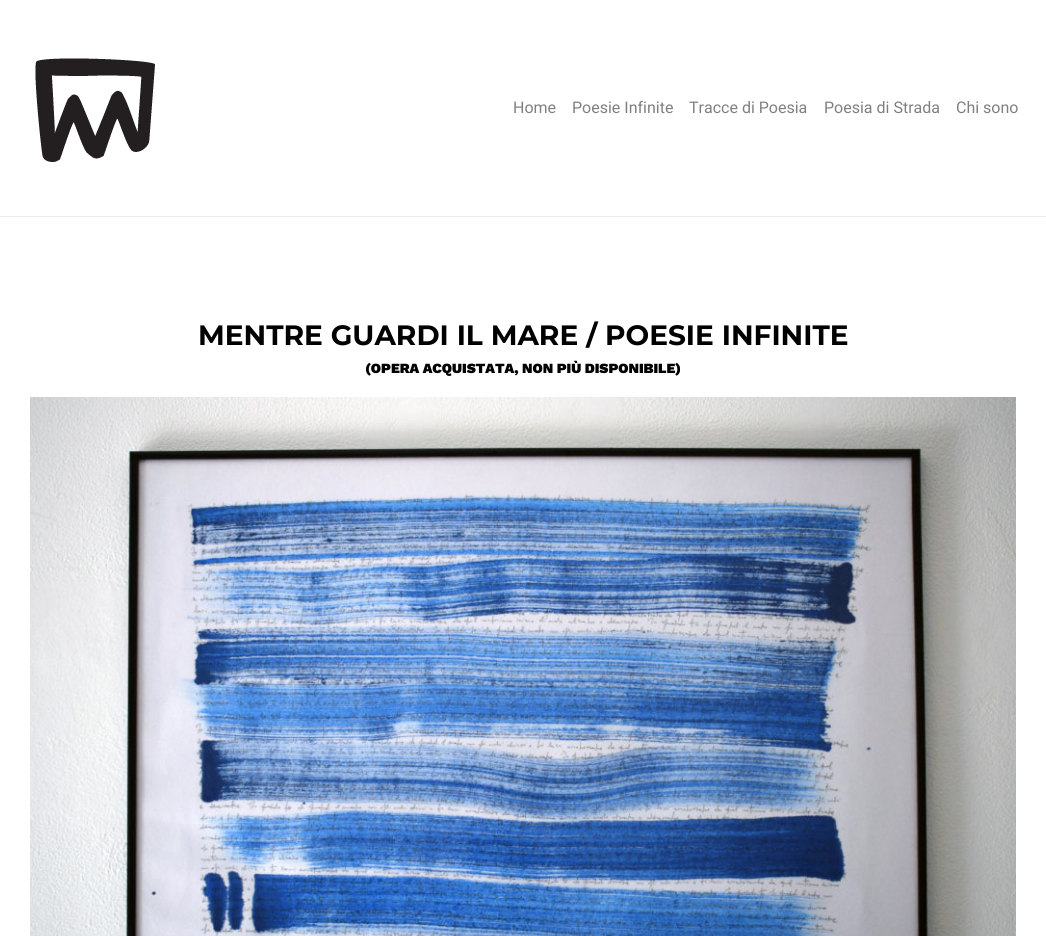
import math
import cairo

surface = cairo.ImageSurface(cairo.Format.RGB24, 1046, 936)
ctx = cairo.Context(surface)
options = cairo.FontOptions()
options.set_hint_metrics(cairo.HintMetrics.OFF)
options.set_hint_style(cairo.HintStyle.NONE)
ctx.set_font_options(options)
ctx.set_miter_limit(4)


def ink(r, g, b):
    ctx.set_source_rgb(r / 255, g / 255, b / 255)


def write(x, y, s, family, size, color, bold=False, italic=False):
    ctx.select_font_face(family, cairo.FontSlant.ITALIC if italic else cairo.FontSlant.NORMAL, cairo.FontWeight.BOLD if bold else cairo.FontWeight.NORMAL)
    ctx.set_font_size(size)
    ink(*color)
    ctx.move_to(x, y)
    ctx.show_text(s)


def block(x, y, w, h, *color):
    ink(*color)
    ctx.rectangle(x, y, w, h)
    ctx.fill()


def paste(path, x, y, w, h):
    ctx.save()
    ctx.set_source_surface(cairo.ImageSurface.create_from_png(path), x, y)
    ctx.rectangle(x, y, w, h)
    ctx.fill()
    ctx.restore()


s1 = dict(family="Roboto", size=16, color=(128, 128, 128))
s2 = dict(family="Montserrat", size=28, color=(0, 0, 0), bold=True)
s3 = dict(family="Work Sans Black", size=14, color=(0, 0, 0))

ink(255, 255, 255)
ctx.paint()
block(0, 216, 1046, 1, 233, 236, 239)
paste("pic1.png", 35, 58, 120, 104)
write(513, 113, "Home", **s1)
write(572, 113, "Poesie Infinite", **s1)
write(689, 113, "Tracce di Poesia", **s1)
write(824, 113, "Poesia di Strada", **s1)
write(956, 113, "Chi sono", **s1)
write(198, 345, "MENTRE GUARDI IL MARE / POESIE INFINITE", **s2)
write(365, 373, "(OPERA ACQUISTATA, NON PIÙ DISPONIBILE)", **s3)
paste("pic2.png", 30, 397, 986, 539)
surface.write_to_png("screenshot.png")
